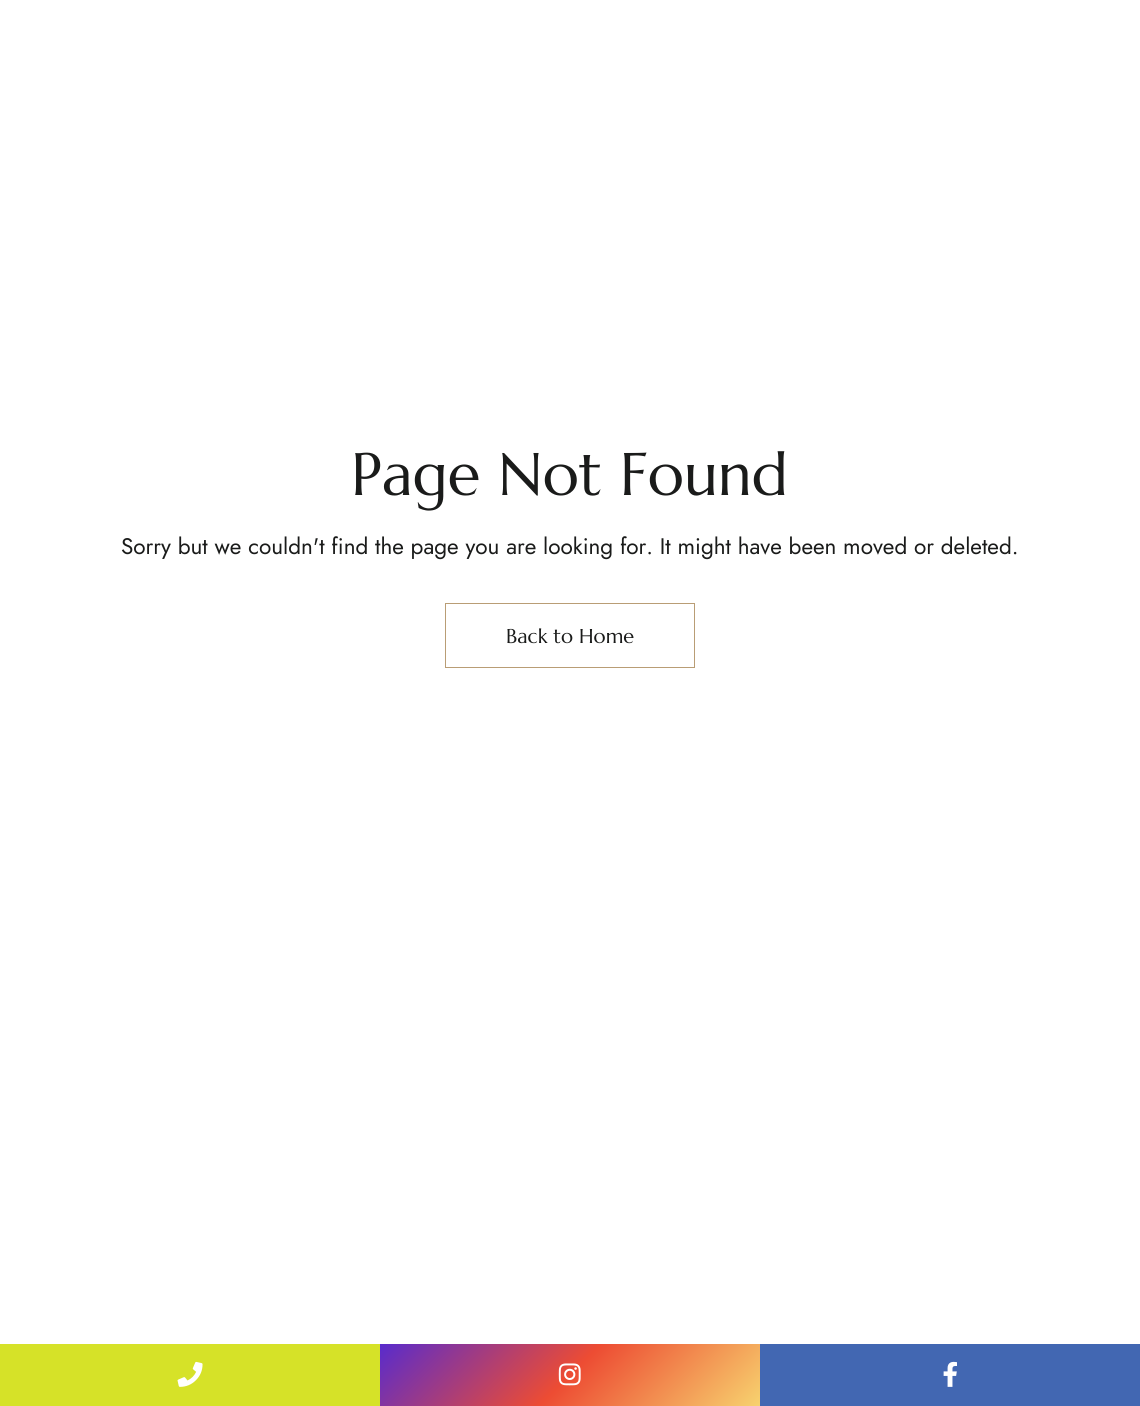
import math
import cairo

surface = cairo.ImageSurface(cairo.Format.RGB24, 1140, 1406)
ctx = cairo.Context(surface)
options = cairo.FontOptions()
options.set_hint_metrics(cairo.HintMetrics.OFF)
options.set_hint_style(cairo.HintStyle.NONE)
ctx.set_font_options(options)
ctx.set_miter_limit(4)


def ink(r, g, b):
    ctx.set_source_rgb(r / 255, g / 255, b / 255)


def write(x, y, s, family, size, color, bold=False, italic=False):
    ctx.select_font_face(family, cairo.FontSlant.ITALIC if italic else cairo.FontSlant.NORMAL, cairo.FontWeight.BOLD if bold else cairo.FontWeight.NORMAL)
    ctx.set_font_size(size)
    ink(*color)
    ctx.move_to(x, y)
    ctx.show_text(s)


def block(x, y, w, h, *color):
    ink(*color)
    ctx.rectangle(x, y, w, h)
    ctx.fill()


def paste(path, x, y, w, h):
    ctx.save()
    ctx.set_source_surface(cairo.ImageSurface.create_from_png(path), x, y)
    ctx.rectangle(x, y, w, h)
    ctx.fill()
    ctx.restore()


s1 = dict(family="Marcellus", size=60, color=(26, 27, 26))
s2 = dict(family="Jost", size=22.5, color=(26, 27, 26))
s3 = dict(family="Marcellus", size=20, color=(26, 27, 26))

ink(255, 255, 255)
ctx.paint()
write(351, 495, "Page Not Found", **s1)
write(121, 554, "Sorry but we couldn't find the page you are looking for. It might have been moved or deleted.", **s2)
ctx.rectangle(445.5, 603.5, 249, 64)
ink(185, 157, 117)
ctx.set_line_width(1)
ctx.stroke()
write(506, 643, "Back to Home", **s3)
block(0, 1344, 380, 62, 214, 226, 40)
paste("pic1.png", 177, 1361, 26, 26)
gradient = cairo.LinearGradient(459, 1264, 681, 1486)
gradient.add_color_stop_rgba(0, 0.345, 0.169, 0.804, 1)
gradient.add_color_stop_rgba(0.5, 0.929, 0.298, 0.2, 1)
gradient.add_color_stop_rgba(1, 0.969, 0.827, 0.435, 1)
ctx.set_source(gradient)
ctx.rectangle(380, 1344, 380, 62)
ctx.fill()
paste("pic2.png", 558, 1363, 23, 23)
block(760, 1344, 380, 62, 66, 103, 178)
paste("pic3.png", 943, 1361, 14, 26)
surface.write_to_png("screenshot.png")
